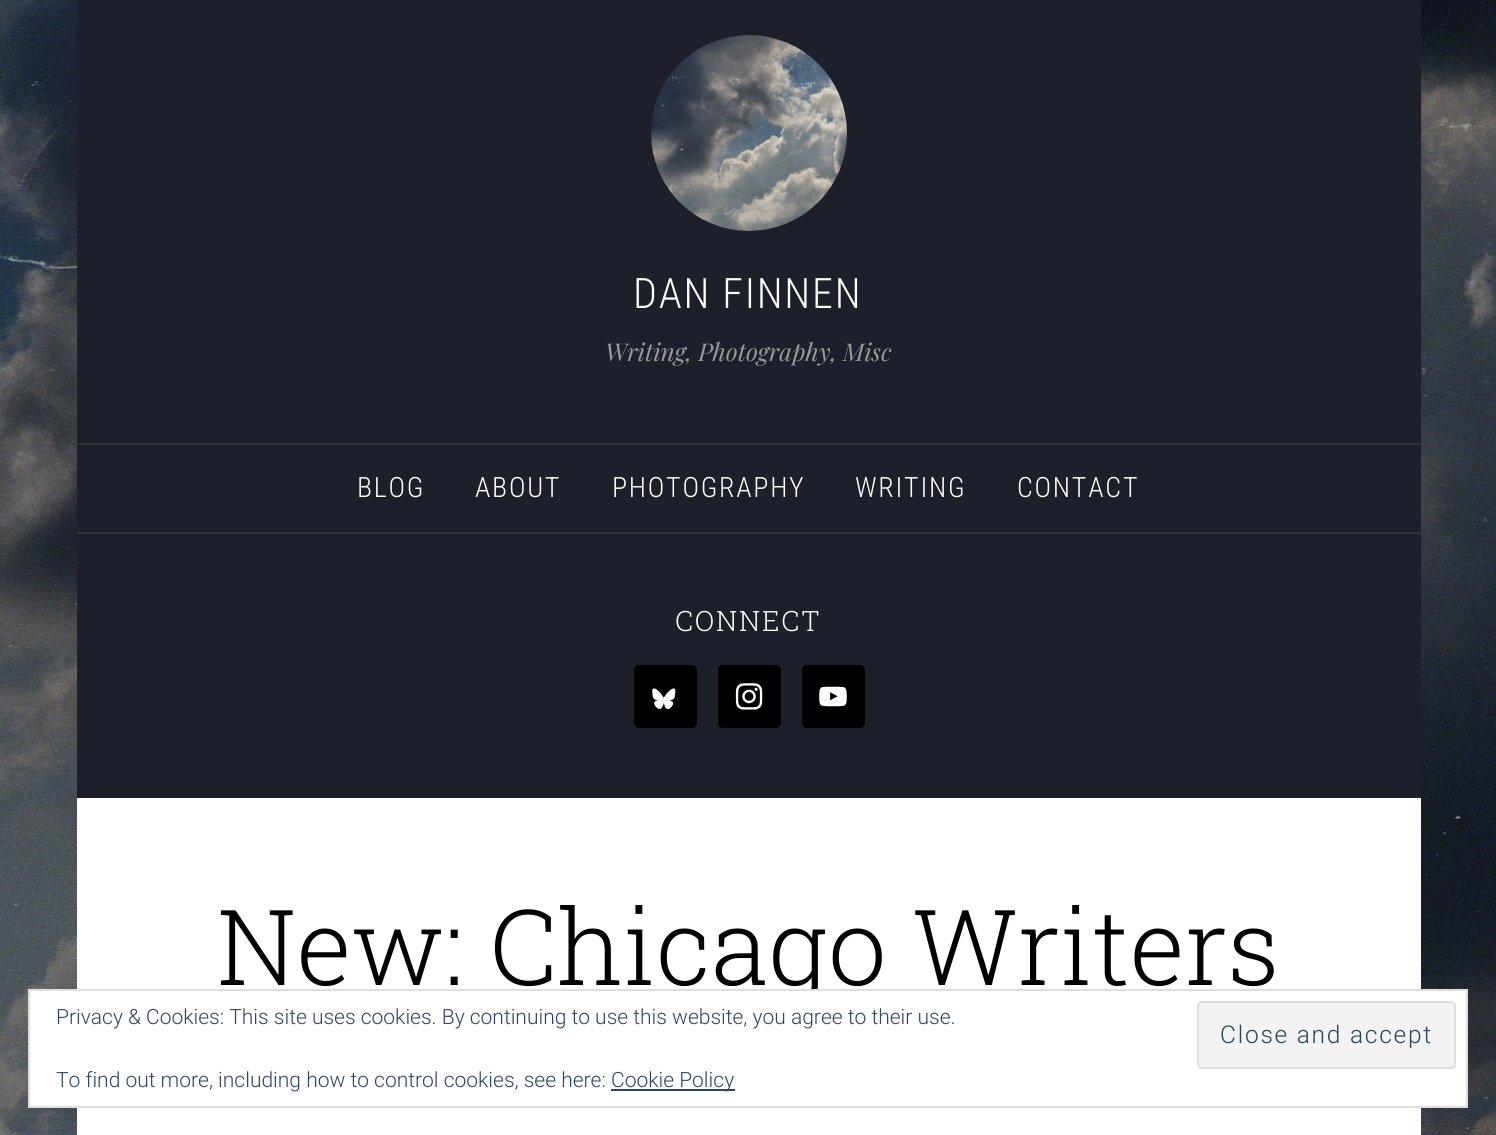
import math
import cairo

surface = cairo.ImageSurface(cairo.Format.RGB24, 1496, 1135)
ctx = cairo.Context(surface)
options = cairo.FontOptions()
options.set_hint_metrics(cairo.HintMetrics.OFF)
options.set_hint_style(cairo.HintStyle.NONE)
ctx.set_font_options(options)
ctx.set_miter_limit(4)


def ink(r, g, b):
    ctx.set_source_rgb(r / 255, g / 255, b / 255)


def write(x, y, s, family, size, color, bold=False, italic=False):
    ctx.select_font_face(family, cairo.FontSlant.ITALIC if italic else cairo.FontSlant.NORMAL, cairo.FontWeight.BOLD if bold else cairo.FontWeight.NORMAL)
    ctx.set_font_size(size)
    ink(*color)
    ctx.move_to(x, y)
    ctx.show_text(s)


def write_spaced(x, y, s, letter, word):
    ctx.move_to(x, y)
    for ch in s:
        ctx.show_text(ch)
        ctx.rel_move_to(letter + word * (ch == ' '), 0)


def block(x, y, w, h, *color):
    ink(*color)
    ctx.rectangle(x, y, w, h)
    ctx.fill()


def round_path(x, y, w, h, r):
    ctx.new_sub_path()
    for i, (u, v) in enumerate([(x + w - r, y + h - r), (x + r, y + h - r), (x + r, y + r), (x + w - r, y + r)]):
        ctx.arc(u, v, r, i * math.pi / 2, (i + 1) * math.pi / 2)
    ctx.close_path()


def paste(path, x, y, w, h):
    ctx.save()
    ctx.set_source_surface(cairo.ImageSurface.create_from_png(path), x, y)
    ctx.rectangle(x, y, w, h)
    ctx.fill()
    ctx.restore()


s1 = dict(family="Playfair Display", size=24.5, color=(153, 153, 153), italic=True)
s2 = dict(family="Roboto Slab Light", size=105, color=(0, 0, 0))
s3 = dict(family="Roboto Light", size=21, color=(46, 68, 103))

ink(255, 255, 255)
ctx.paint()
paste("pic1.png", 0, 0, 1496, 1135)
block(77, 0, 1344, 798, 29, 32, 42)
paste("pic2.png", 651, 35, 196, 196)
ctx.select_font_face("Roboto Condensed Light")
ctx.set_font_size(42)
ink(255, 255, 255)
write_spaced(633, 308, "DAN FINNEN", 1.75, 0)
write(605, 361, "Writing, Photography, Misc", **s1)
block(77, 443, 1344, 2, 51, 51, 51)
block(77, 532, 1344, 2, 51, 51, 51)
ctx.select_font_face("Roboto Condensed Light")
ctx.set_font_size(28)
ink(255, 255, 255)
write_spaced(357, 497, "BLOG", 1.75, 0)
write_spaced(475, 497, "ABOUT", 1.75, 0)
write_spaced(612, 497, "PHOTOGRAPHY", 1.75, 0)
write_spaced(855, 497, "WRITING", 1.75, 0)
write_spaced(1017, 497, "CONTACT", 1.75, 0)
ctx.select_font_face("Roboto Slab Light")
write_spaced(675, 631, "CONNECT", 1.75, 0)
ink(0, 0, 0)
round_path(634, 665, 63, 63, 5)
ctx.fill()
paste("pic3.png", 652, 688, 24, 21)
round_path(718, 665, 63, 63, 5)
ctx.fill()
paste("pic4.png", 735, 683, 28, 27)
round_path(802, 665, 63, 63, 5)
ctx.fill()
paste("pic5.png", 819, 686, 28, 21)
block(77, 798, 1344, 337, 255, 255, 255)
write(217, 985, "New: Chicago Writers", **s2)
ink(255, 255, 255)
ctx.rectangle(29, 990, 1438, 117)
ctx.fill_preserve()
ink(222, 222, 222)
ctx.stroke()
write(56, 1024, "Privacy & Cookies: This site uses cookies. By continuing to use this website, you agree to their use.", **s3)
ink(243, 243, 243)
round_path(1198, 1002, 257, 66, 4)
ctx.fill_preserve()
ink(222, 222, 222)
ctx.stroke()
ctx.set_font_size(24.5)
ink(46, 68, 83)
write_spaced(1220, 1043, "Close and accept", 1.75, 0)
write(56, 1087, "To find out more, including how to control cookies, see here:", **s3)
block(611, 1089, 124, 2, 46, 68, 103)
write(611, 1087, "Cookie Policy", **s3)
surface.write_to_png("screenshot.png")
